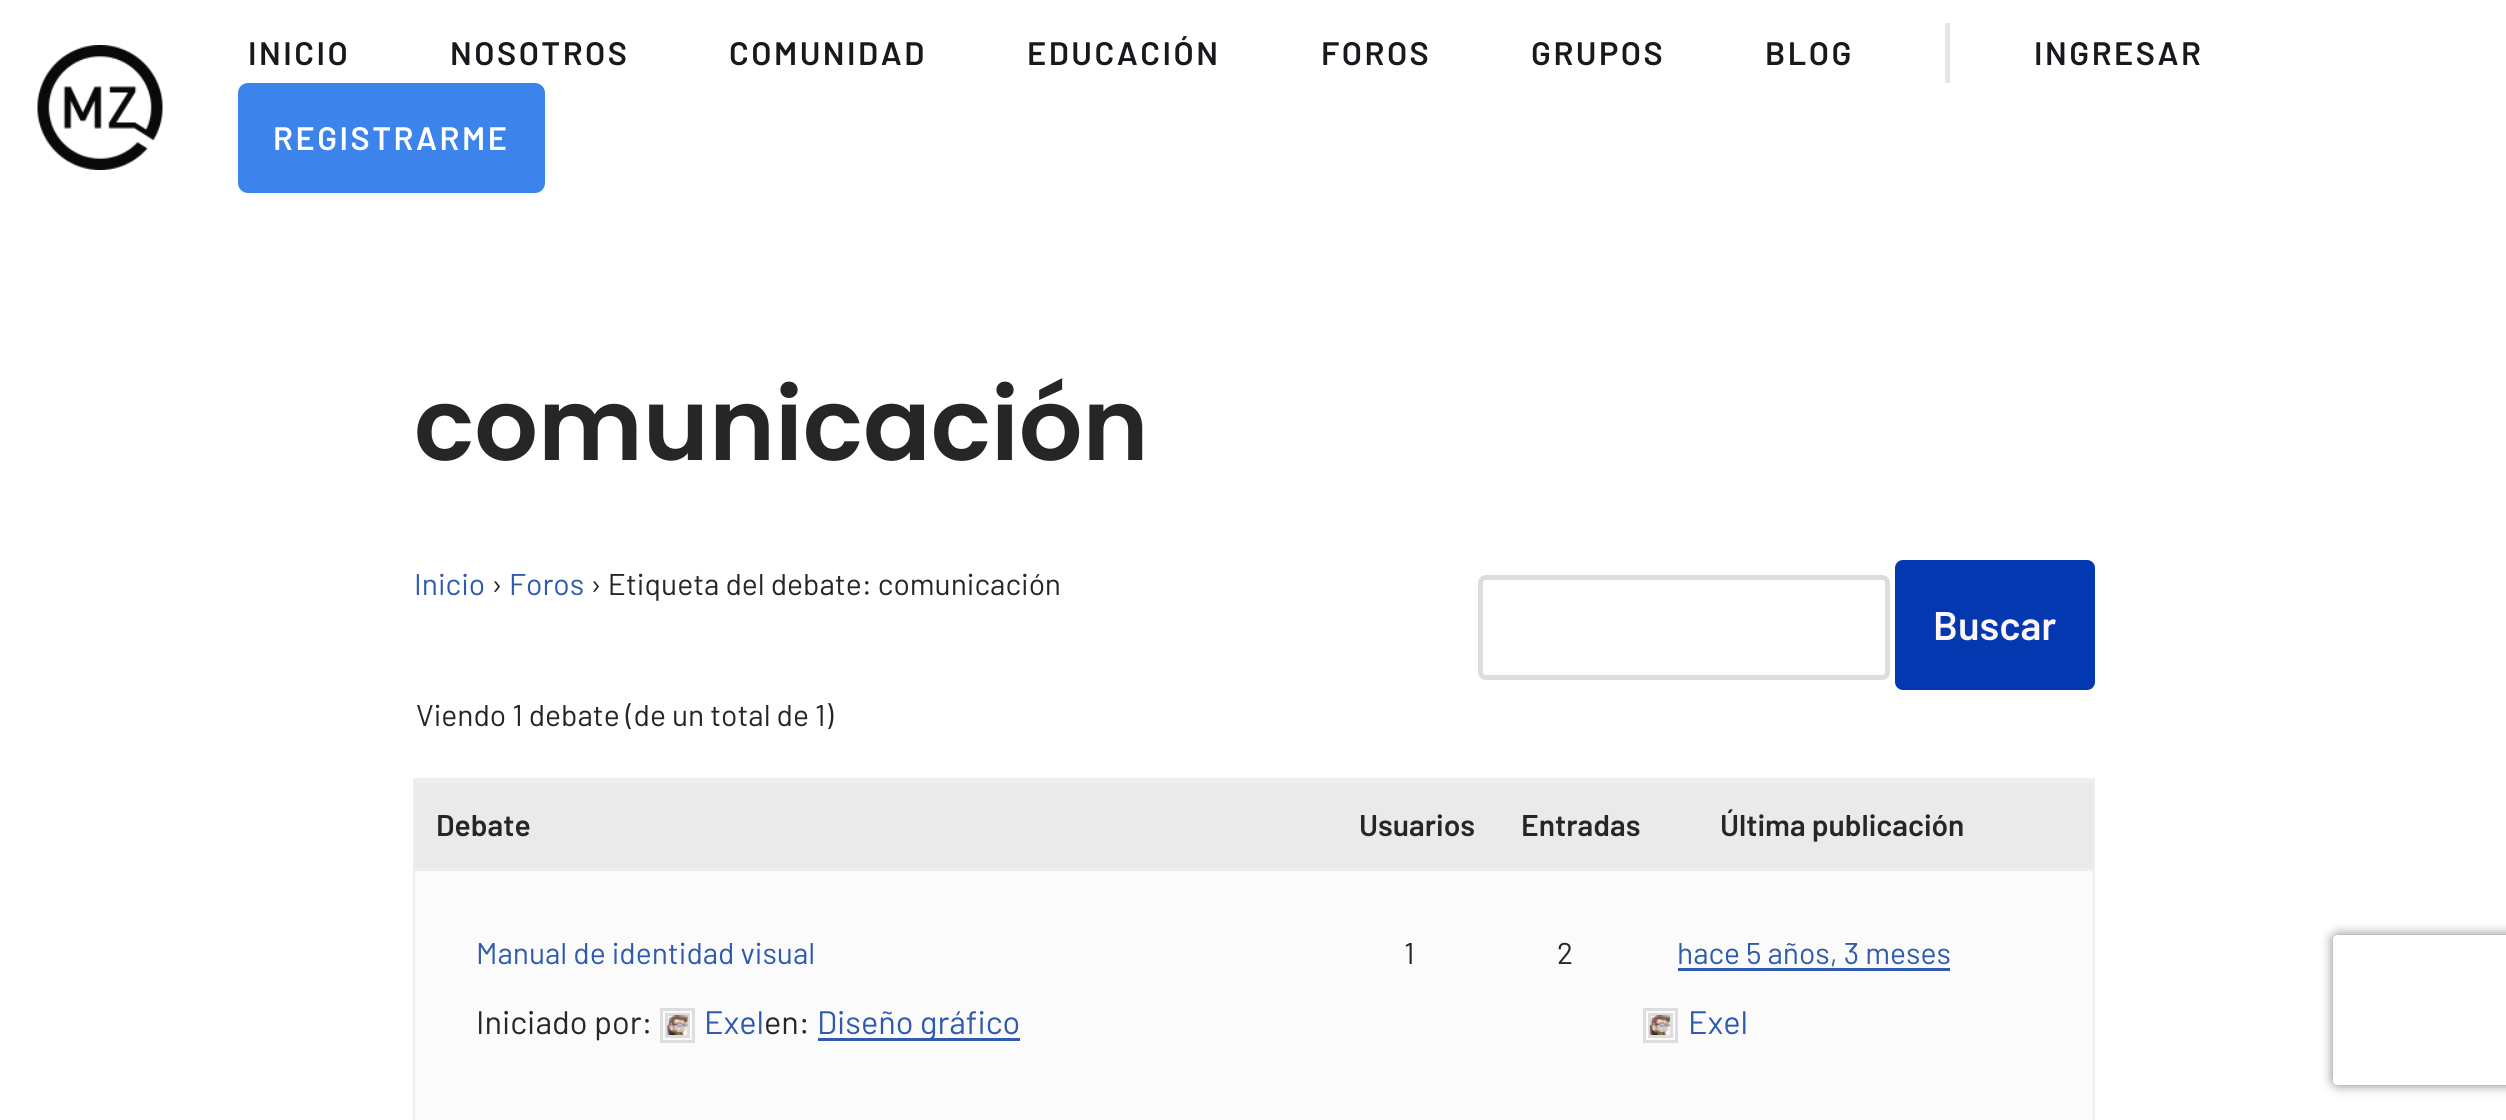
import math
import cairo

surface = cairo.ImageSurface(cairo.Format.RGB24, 2506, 1120)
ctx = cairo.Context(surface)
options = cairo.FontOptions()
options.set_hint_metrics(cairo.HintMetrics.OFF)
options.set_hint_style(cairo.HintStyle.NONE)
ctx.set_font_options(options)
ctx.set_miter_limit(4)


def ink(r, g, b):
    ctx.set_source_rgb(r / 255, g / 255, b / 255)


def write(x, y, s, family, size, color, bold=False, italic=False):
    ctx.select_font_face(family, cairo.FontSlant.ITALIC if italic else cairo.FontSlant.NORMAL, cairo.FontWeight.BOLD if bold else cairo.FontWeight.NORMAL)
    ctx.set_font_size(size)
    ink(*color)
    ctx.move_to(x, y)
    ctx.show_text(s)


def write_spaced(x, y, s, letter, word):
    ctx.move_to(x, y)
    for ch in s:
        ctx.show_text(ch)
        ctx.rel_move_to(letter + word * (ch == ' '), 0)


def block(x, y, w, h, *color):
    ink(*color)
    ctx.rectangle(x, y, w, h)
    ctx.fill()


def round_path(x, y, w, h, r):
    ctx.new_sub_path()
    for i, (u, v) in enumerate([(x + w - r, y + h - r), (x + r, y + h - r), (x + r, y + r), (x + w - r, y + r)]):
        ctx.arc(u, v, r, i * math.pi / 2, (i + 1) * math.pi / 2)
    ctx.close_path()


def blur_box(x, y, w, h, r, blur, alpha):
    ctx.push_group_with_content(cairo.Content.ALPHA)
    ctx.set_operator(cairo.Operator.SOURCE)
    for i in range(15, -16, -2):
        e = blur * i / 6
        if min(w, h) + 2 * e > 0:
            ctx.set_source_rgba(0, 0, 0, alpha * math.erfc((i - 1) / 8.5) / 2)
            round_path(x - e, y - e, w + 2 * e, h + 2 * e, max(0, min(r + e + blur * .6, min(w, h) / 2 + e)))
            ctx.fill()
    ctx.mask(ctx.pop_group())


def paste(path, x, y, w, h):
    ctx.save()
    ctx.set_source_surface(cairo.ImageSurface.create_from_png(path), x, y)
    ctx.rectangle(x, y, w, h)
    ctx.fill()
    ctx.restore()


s1 = dict(family="Poppins SemiBold", size=100, color=(39, 38, 38))
s2 = dict(family="Barlow", size=30, color=(47, 90, 174))
s3 = dict(family="Barlow", size=30, color=(39, 38, 38))
s4 = dict(family="Barlow SemiBold", size=40, color=(254, 246, 246))
s5 = dict(family="Barlow SemiBold", size=30, color=(39, 38, 38))
s6 = dict(family="Barlow", size=32.5, color=(39, 38, 38))
s7 = dict(family="Barlow", size=32.5, color=(47, 90, 174))

ink(255, 255, 255)
ctx.paint()
paste("pic1.png", 37, 45, 126, 125)
ctx.select_font_face("Barlow SemiBold")
ctx.set_font_size(32.5)
ink(24, 25, 29)
write_spaced(248, 65, "INICIO", 2.5, 0)
write_spaced(450, 65, "NOSOTROS", 2.5, 0)
write_spaced(729, 65, "COMUNIDAD", 2.5, 0)
write_spaced(1027, 65, "EDUCACIÓN", 2.5, 0)
write_spaced(1321, 65, "FOROS", 2.5, 0)
write_spaced(1531, 65, "GRUPOS", 2.5, 0)
write_spaced(1765, 65, "BLOG", 2.5, 0)
block(1945, 23, 5, 60, 230, 230, 230)
ink(24, 25, 29)
write_spaced(2034, 65, "INGRESAR", 2.5, 0)
ink(60, 131, 236)
round_path(238, 83, 307, 110, 10)
ctx.fill()
ink(255, 255, 255)
write_spaced(273, 150, "REGISTRARME", 2.5, 0)
write(414, 460, "comunicación", **s1)
write(414, 595, "Inicio", **s2)
write(491, 595, "›", **s3)
write(509, 595, "Foros", **s2)
write(590, 595, "› Etiqueta del debate: comunicación", **s3)
round_path(1480.5, 577.5, 407, 100, 5.5)
ink(221, 221, 221)
ctx.set_line_width(5)
ctx.stroke()
ink(4, 56, 177)
round_path(1895, 560, 200, 130, 8)
ctx.fill()
write(1933, 640, "Buscar", **s4)
write(416, 726, "Viendo 1 debate (de un total de 1)", **s3)
ctx.rectangle(414.5, 779.5, 1679, 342)
ink(238, 238, 238)
ctx.set_line_width(3)
ctx.stroke()
block(415, 783, 1678, 85, 234, 234, 234)
block(415, 781, 1678, 2, 238, 238, 238)
write(436, 836, "Debate", **s5)
write(1359, 836, "Usuarios", **s5)
write(1521, 836, "Entradas", **s5)
write(1720, 836, "Última publicación", **s5)
block(415, 871, 1678, 249, 251, 251, 251)
block(415, 868, 1678, 3, 238, 238, 238)
write(476, 964, "Manual de identidad visual", **s2)
write(476, 1034, "Iniciado por:", **s6)
ctx.rectangle(661.5, 1009.5, 32, 32)
ink(221, 221, 221)
ctx.stroke()
ctx.rectangle(666.5, 1014.5, 22, 22)
ctx.stroke()
paste("pic2.png", 667, 1015, 21, 20)
write(704, 1034, "Exel", **s7)
write(764, 1034, "en:", **s6)
block(818, 1038, 202, 3, 47, 90, 174)
write(817, 1034, "Diseño gráfico", **s7)
write(1404, 964, "1", **s3)
write(1557, 964, "2", **s3)
write(1677, 964, "hace 5 años, 3 meses", **s2)
block(1678, 968, 272, 3, 47, 90, 174)
ctx.rectangle(1644.5, 1009.5, 32, 32)
ink(221, 221, 221)
ctx.stroke()
ctx.rectangle(1649.5, 1014.5, 22, 22)
ctx.stroke()
paste("pic3.png", 1650, 1015, 20, 20)
write(1688, 1034, "Exel", **s7)
ctx.save()
ctx.set_fill_rule(cairo.FillRule.EVEN_ODD)
ctx.new_path()
ctx.move_to(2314, 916)
ctx.line_to(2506, 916)
ctx.line_to(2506, 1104)
ctx.line_to(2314, 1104)
ctx.close_path()
ctx.move_to(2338, 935)
ctx.line_to(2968, 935)
ctx.curve_to(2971, 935, 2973, 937, 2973, 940)
ctx.line_to(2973, 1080)
ctx.curve_to(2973, 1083, 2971, 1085, 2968, 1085)
ctx.line_to(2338, 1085)
ctx.curve_to(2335, 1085, 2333, 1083, 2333, 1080)
ctx.line_to(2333, 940)
ctx.curve_to(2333, 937, 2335, 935, 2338, 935)
ctx.close_path()
ctx.clip()
ink(128, 128, 128)
blur_box(2333, 935, 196, 150, 5, 6, 1)
ctx.restore()
surface.write_to_png("screenshot.png")
